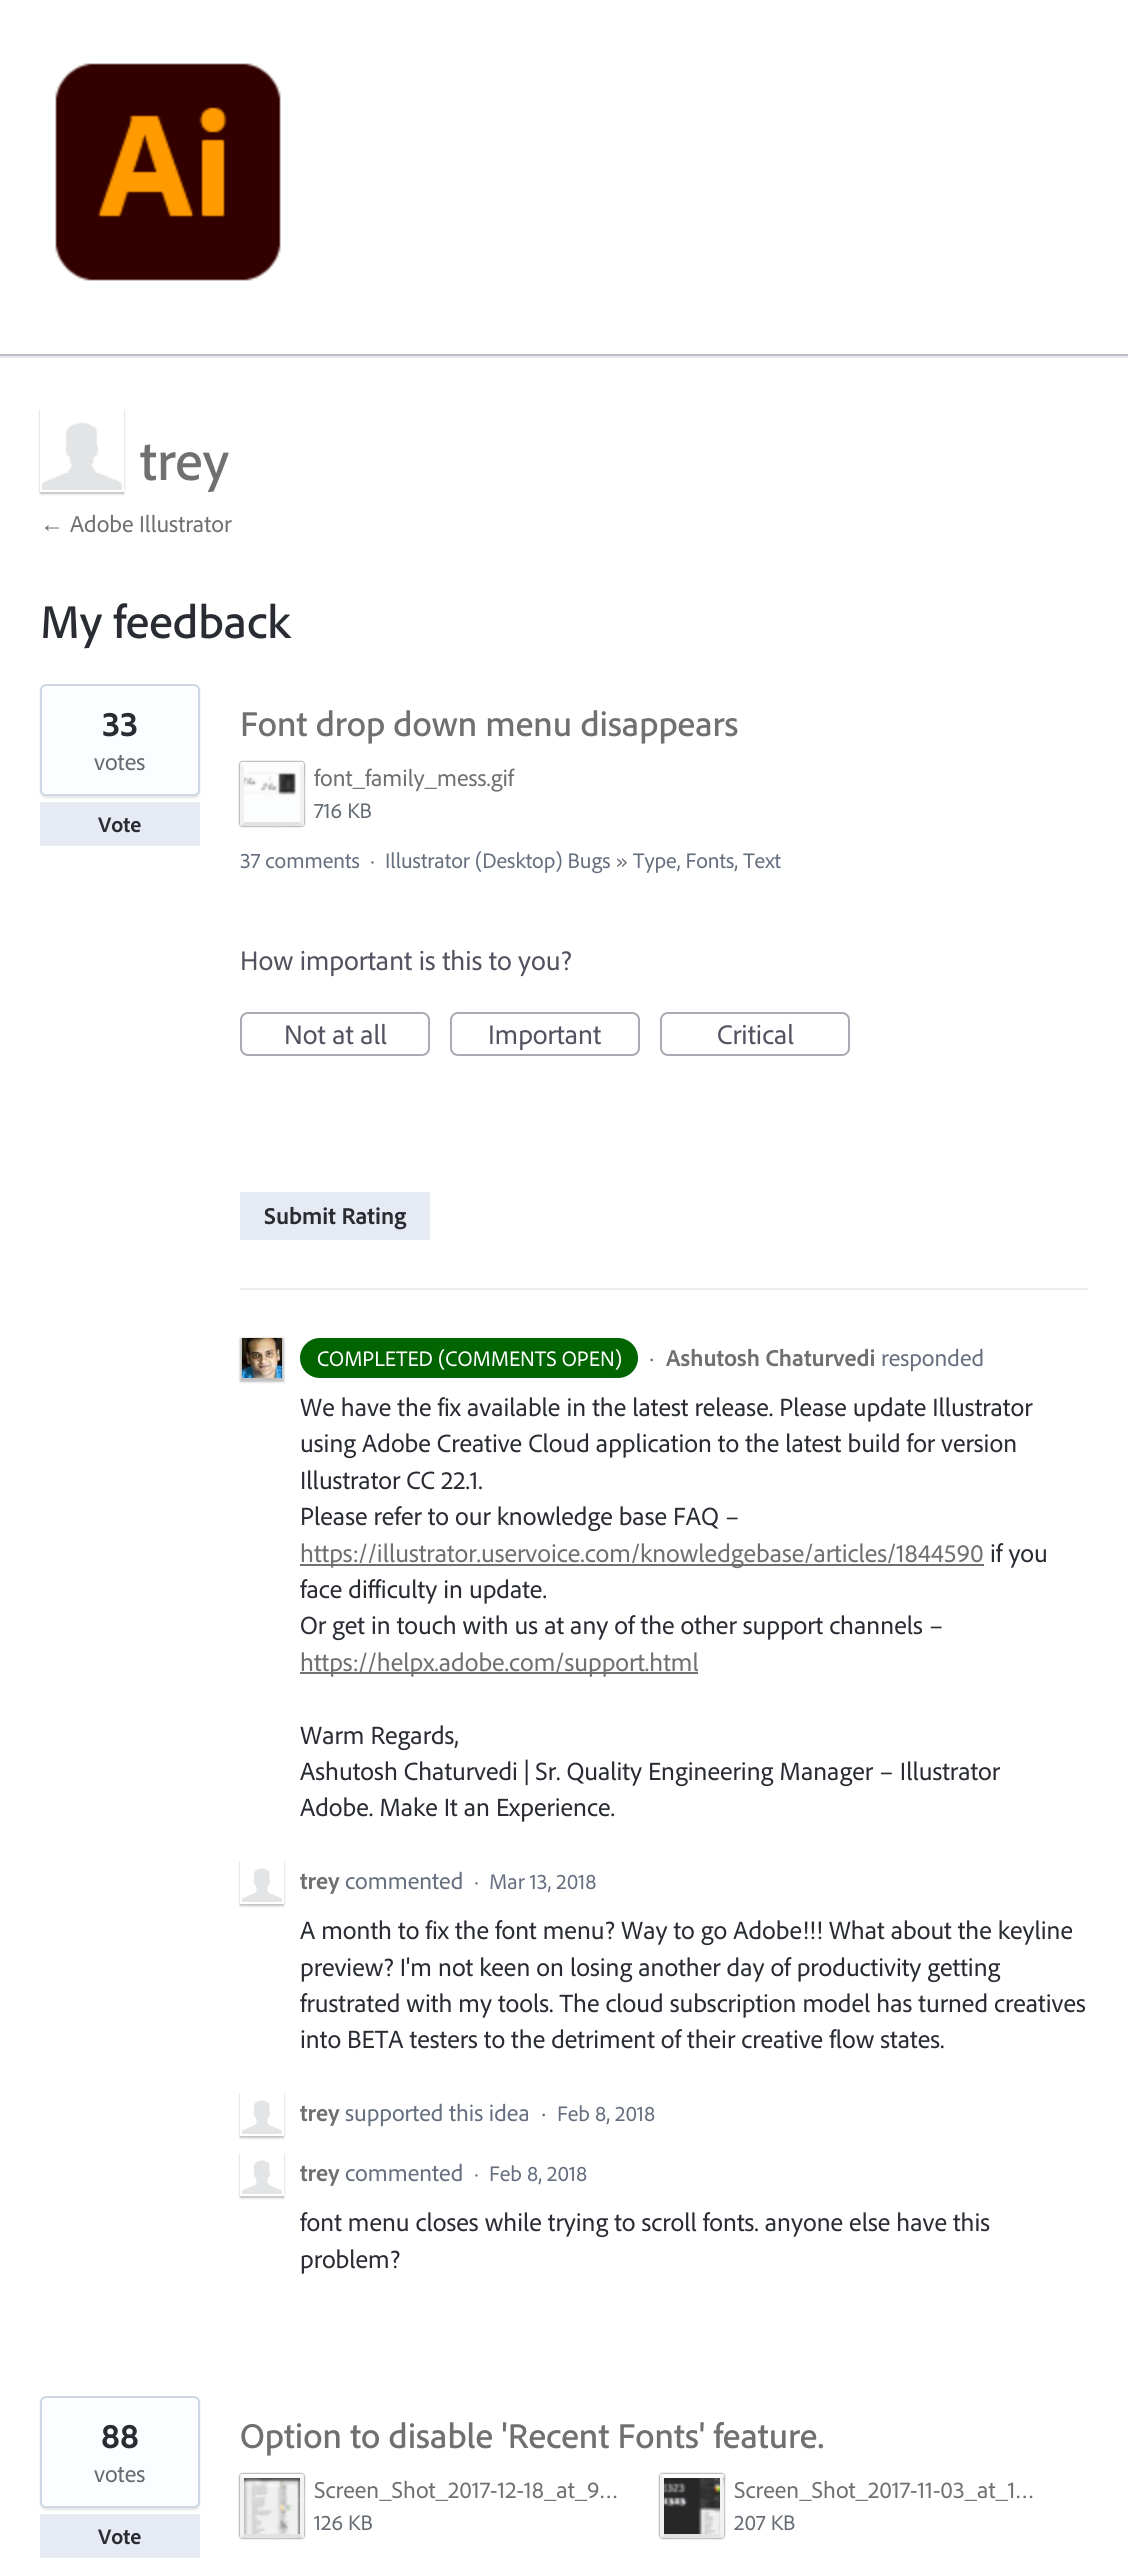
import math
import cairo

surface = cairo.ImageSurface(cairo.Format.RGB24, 1128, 2564)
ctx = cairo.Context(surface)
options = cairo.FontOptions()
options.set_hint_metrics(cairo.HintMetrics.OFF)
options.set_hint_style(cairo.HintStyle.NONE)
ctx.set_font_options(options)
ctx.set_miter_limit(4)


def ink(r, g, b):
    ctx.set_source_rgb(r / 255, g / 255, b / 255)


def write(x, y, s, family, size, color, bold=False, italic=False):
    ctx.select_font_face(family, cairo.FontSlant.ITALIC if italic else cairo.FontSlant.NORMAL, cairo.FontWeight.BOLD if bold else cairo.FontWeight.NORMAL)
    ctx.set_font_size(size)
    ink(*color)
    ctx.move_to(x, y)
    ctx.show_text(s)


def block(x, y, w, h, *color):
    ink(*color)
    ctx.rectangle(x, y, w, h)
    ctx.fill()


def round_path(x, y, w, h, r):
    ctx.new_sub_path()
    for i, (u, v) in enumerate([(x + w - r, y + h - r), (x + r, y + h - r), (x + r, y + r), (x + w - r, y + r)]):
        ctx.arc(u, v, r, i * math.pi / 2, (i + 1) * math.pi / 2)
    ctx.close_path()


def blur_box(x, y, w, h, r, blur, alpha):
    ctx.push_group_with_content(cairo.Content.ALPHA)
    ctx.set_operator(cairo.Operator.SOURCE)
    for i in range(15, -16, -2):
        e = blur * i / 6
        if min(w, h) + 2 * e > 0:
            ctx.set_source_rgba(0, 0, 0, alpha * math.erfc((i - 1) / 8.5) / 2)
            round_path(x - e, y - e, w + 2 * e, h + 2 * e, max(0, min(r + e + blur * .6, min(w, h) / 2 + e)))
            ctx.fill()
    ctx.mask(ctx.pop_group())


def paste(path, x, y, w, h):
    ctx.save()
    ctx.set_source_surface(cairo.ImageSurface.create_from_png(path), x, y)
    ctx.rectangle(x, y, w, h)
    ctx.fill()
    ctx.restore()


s1 = dict(family="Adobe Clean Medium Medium", size=56, color=(112, 112, 112))
s2 = dict(family="Liberation Sans", size=24, color=(112, 112, 112))
s3 = dict(family="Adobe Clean", size=24, color=(112, 112, 112))
s4 = dict(family="Adobe Clean Medium Medium", size=48, color=(41, 44, 51))
s5 = dict(family="Adobe Clean", size=36, color=(41, 44, 51), bold=True)
s6 = dict(family="Adobe Clean", size=24, color=(100, 107, 114))
s7 = dict(family="Adobe Clean", size=22, color=(41, 44, 51), bold=True)
s8 = dict(family="Adobe Clean Medium Medium", size=36, color=(112, 112, 112))
s9 = dict(family="Adobe Clean", size=22, color=(100, 107, 114))
s10 = dict(family="Adobe Clean", size=22, color=(102, 111, 128))
s11 = dict(family="Adobe Clean", size=28, color=(82, 82, 96))
s12 = dict(family="Adobe Clean", size=24, color=(41, 44, 51), bold=True)
s13 = dict(family="Adobe Clean", size=22, color=(255, 255, 255))
s14 = dict(family="Adobe Clean", size=24, color=(112, 112, 112), bold=True)
s15 = dict(family="Adobe Clean", size=24, color=(102, 111, 128))
s16 = dict(family="Adobe Clean", size=26, color=(41, 44, 51))
s17 = dict(family="Adobe Clean", size=26, color=(112, 112, 112))

ink(255, 255, 255)
ctx.paint()
block(0, 354, 1128, 2, 191, 191, 191)
paste("pic1.png", 55, 63, 226, 218)
block(0, 356, 1128, 2, 227, 232, 242)
ctx.save()
ctx.set_fill_rule(cairo.FillRule.EVEN_ODD)
ctx.new_path()
ctx.move_to(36, 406)
ctx.line_to(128, 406)
ctx.line_to(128, 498)
ctx.line_to(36, 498)
ctx.close_path()
ctx.move_to(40, 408)
ctx.line_to(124, 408)
ctx.line_to(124, 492)
ctx.line_to(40, 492)
ctx.close_path()
ctx.clip()
ink(0, 0, 0)
blur_box(40, 410, 84, 84, 0, 1, 0.25)
ctx.restore()
paste("pic2.png", 42, 422, 80, 68)
write(140, 480, "trey", **s1)
write(40, 532, "←", **s2)
write(70, 532, "Adobe Illustrator", **s3)
write(40, 638, "My feedback", **s4)
ink(0, 0, 0)
blur_box(40, 686, 160, 112, 6, 1, 0.1)
ink(252, 253, 255)
round_path(41, 685, 158, 110, 5)
ctx.fill_preserve()
ink(207, 215, 230)
ctx.stroke()
write(102, 736, "33", **s5)
write(94, 770, "votes", **s6)
block(40, 802, 160, 44, 230, 234, 242)
write(98, 832, "Vote", **s7)
write(240, 736, "Font drop down menu disappears", **s8)
ink(0, 0, 0)
blur_box(240, 762, 64, 64, 2, 1, 0.75)
ink(252, 253, 255)
round_path(240, 762, 64, 64, 2)
ctx.fill()
paste("pic3.png", 244, 771, 53, 27)
ink(254, 254, 254)
ctx.new_path()
ctx.move_to(242, 762)
ctx.line_to(241, 763)
ctx.line_to(244, 766)
ctx.line_to(300, 766)
ctx.line_to(303, 763)
ctx.line_to(302, 762)
ctx.close_path()
ctx.fill()
ink(241, 241, 241)
ctx.new_path()
ctx.move_to(304, 824)
ctx.curve_to(304, 817, 305, 764, 303, 763)
ctx.line_to(300, 766)
ctx.line_to(300, 822)
ctx.line_to(303, 825)
ctx.close_path()
ctx.fill()
ink(226, 226, 226)
ctx.new_path()
ctx.move_to(242, 826)
ctx.curve_to(249, 826, 302, 827, 303, 825)
ctx.line_to(300, 822)
ctx.line_to(244, 822)
ctx.line_to(241, 825)
ctx.close_path()
ctx.fill()
ink(241, 241, 241)
ctx.new_path()
ctx.move_to(244, 766)
ctx.line_to(241, 763)
ctx.line_to(240, 764)
ctx.line_to(240, 824)
ctx.line_to(241, 825)
ctx.line_to(244, 822)
ctx.close_path()
ctx.fill()
write(314, 786, "font_family_mess.gif", **s3)
write(314, 818, "716 KB", **s9)
write(240, 868, "37 comments", **s10)
write(370, 868, "·", **s9)
write(385, 868, "Illustrator (Desktop) Bugs", **s10)
write(616, 868, "»", **s9)
write(633, 868, "Type, Fonts, Text", **s10)
block(240, 1288, 848, 2, 235, 235, 241)
write(240, 970, "How important is this to you?", **s11)
round_path(241, 1013, 188, 42, 7)
ink(170, 170, 178)
ctx.stroke()
write(284, 1044, "Not at all", **s11)
round_path(451, 1013, 188, 42, 7)
ink(170, 170, 178)
ctx.stroke()
write(488, 1044, "Important", **s11)
round_path(661, 1013, 188, 42, 7)
ink(170, 170, 178)
ctx.stroke()
write(717, 1044, "Critical", **s11)
block(240, 1192, 190, 48, 230, 234, 242)
write(264, 1224, "Submit Rating", **s12)
ink(0, 100, 0)
round_path(300, 1338, 338, 40, 20)
ctx.fill()
write(317, 1366, "COMPLETED (COMMENTS OPEN)", **s13)
write(649, 1366, "·", **s6)
ink(0, 0, 0)
blur_box(240, 1338, 44, 44, 0, 1, 0.25)
paste("pic4.png", 242, 1338, 40, 40)
write(666, 1366, "Ashutosh Chaturvedi", **s14)
write(881, 1366, "responded", **s15)
write(300, 1416, "We have the fix available in the latest release. Please update Illustrator", **s16)
write(300, 1452, "using Adobe Creative Cloud application to the latest build for version", **s16)
write(300, 1489, "Illustrator CC 22.1.", **s16)
write(300, 1525, "Please refer to our knowledge base FAQ –", **s16)
block(300, 1564, 684, 2, 112, 112, 112)
write(300, 1562, "https://illustrator.uservoice.com/knowledgebase/articles/1844590", **s17)
write(990, 1562, "if you", **s16)
write(300, 1598, "face difficulty in update.", **s16)
write(300, 1634, "Or get in touch with us at any of the other support channels –", **s16)
block(300, 1672, 398, 2, 112, 112, 112)
write(300, 1671, "https://helpx.adobe.com/support.html", **s17)
write(300, 1744, "Warm Regards,", **s16)
write(300, 1780, "Ashutosh Chaturvedi | Sr. Quality Engineering Manager – Illustrator", **s16)
write(300, 1816, "Adobe. Make It an Experience.", **s16)
ctx.save()
ctx.set_fill_rule(cairo.FillRule.EVEN_ODD)
ctx.new_path()
ctx.move_to(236, 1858)
ctx.line_to(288, 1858)
ctx.line_to(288, 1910)
ctx.line_to(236, 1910)
ctx.close_path()
ctx.move_to(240, 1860)
ctx.line_to(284, 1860)
ctx.line_to(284, 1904)
ctx.line_to(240, 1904)
ctx.close_path()
ctx.clip()
ink(0, 0, 0)
blur_box(240, 1862, 44, 44, 0, 1, 0.25)
ctx.restore()
paste("pic5.png", 242, 1868, 40, 34)
write(300, 1889, "trey", **s14)
write(345, 1889, "commented", **s15)
write(474, 1889, "·", **s9)
write(489, 1889, "Mar 13, 2018", **s10)
write(300, 1939, "A month to fix the font menu? Way to go Adobe!!! What about the keyline", **s16)
write(300, 1976, "preview? I'm not keen on losing another day of productivity getting", **s16)
write(300, 2012, "frustrated with my tools. The cloud subscription model has turned creatives", **s16)
write(300, 2048, "into BETA testers to the detriment of their creative flow states.", **s16)
ctx.save()
ctx.set_fill_rule(cairo.FillRule.EVEN_ODD)
ctx.new_path()
ctx.move_to(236, 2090)
ctx.line_to(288, 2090)
ctx.line_to(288, 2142)
ctx.line_to(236, 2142)
ctx.close_path()
ctx.move_to(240, 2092)
ctx.line_to(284, 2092)
ctx.line_to(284, 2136)
ctx.line_to(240, 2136)
ctx.close_path()
ctx.clip()
ink(0, 0, 0)
blur_box(240, 2094, 44, 44, 0, 1, 0.25)
ctx.restore()
paste("pic6.png", 242, 2100, 40, 34)
write(300, 2121, "trey", **s14)
write(345, 2121, "supported this idea", **s15)
write(541, 2121, "·", **s6)
write(557, 2121, "Feb 8, 2018", **s10)
ctx.save()
ctx.set_fill_rule(cairo.FillRule.EVEN_ODD)
ctx.new_path()
ctx.move_to(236, 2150)
ctx.line_to(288, 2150)
ctx.line_to(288, 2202)
ctx.line_to(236, 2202)
ctx.close_path()
ctx.move_to(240, 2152)
ctx.line_to(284, 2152)
ctx.line_to(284, 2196)
ctx.line_to(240, 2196)
ctx.close_path()
ctx.clip()
ink(0, 0, 0)
blur_box(240, 2154, 44, 44, 0, 1, 0.25)
ctx.restore()
paste("pic7.png", 242, 2160, 40, 34)
write(300, 2181, "trey", **s14)
write(345, 2181, "commented", **s15)
write(474, 2181, "·", **s9)
write(489, 2181, "Feb 8, 2018", **s10)
write(300, 2231, "font menu closes while trying to scroll fonts. anyone else have this", **s16)
write(300, 2268, "problem?", **s16)
ink(0, 0, 0)
blur_box(40, 2398, 160, 112, 6, 1, 0.1)
ink(252, 253, 255)
round_path(41, 2397, 158, 110, 5)
ctx.fill_preserve()
ink(207, 215, 230)
ctx.stroke()
write(101, 2448, "88", **s5)
write(94, 2482, "votes", **s6)
block(40, 2514, 160, 44, 230, 234, 242)
write(98, 2544, "Vote", **s7)
write(240, 2448, "Option to disable 'Recent Fonts' feature.", **s8)
ink(0, 0, 0)
blur_box(240, 2474, 64, 64, 2, 1, 0.75)
ink(252, 253, 255)
round_path(240, 2474, 64, 64, 2)
ctx.fill()
paste("pic8.png", 244, 2478, 56, 60)
ink(254, 254, 254)
ctx.new_path()
ctx.move_to(242, 2474)
ctx.line_to(241, 2475)
ctx.line_to(244, 2478)
ctx.line_to(300, 2478)
ctx.line_to(303, 2475)
ctx.line_to(302, 2474)
ctx.close_path()
ctx.fill()
ink(241, 241, 241)
ctx.new_path()
ctx.move_to(304, 2536)
ctx.curve_to(304, 2529, 305, 2476, 303, 2475)
ctx.line_to(300, 2478)
ctx.line_to(300, 2534)
ctx.line_to(303, 2537)
ctx.close_path()
ctx.fill()
ink(226, 226, 226)
ctx.new_path()
ctx.move_to(242, 2538)
ctx.curve_to(249, 2538, 302, 2539, 303, 2537)
ctx.line_to(300, 2534)
ctx.line_to(244, 2534)
ctx.line_to(241, 2537)
ctx.close_path()
ctx.fill()
ink(241, 241, 241)
ctx.new_path()
ctx.move_to(244, 2478)
ctx.line_to(241, 2475)
ctx.line_to(240, 2476)
ctx.line_to(240, 2536)
ctx.line_to(241, 2537)
ctx.line_to(244, 2534)
ctx.close_path()
ctx.fill()
write(314, 2498, "Screen_Shot_2017-12-18_at_9…", **s3)
write(314, 2530, "126 KB", **s9)
ink(0, 0, 0)
blur_box(660, 2474, 64, 64, 2, 1, 0.75)
ink(252, 253, 255)
round_path(660, 2474, 64, 64, 2)
ctx.fill()
paste("pic9.png", 664, 2478, 60, 56)
ink(254, 254, 254)
ctx.new_path()
ctx.move_to(662, 2474)
ctx.line_to(661, 2475)
ctx.line_to(664, 2478)
ctx.line_to(720, 2478)
ctx.line_to(723, 2475)
ctx.line_to(722, 2474)
ctx.close_path()
ctx.fill()
ink(241, 241, 241)
ctx.new_path()
ctx.move_to(724, 2536)
ctx.curve_to(724, 2529, 725, 2476, 723, 2475)
ctx.line_to(720, 2478)
ctx.line_to(720, 2534)
ctx.line_to(723, 2537)
ctx.close_path()
ctx.fill()
ink(226, 226, 226)
ctx.new_path()
ctx.move_to(662, 2538)
ctx.curve_to(669, 2538, 722, 2539, 723, 2537)
ctx.line_to(720, 2534)
ctx.line_to(664, 2534)
ctx.line_to(661, 2537)
ctx.close_path()
ctx.fill()
ink(241, 241, 241)
ctx.new_path()
ctx.move_to(664, 2478)
ctx.line_to(661, 2475)
ctx.line_to(660, 2476)
ctx.line_to(660, 2536)
ctx.line_to(661, 2537)
ctx.line_to(664, 2534)
ctx.close_path()
ctx.fill()
write(734, 2498, "Screen_Shot_2017-11-03_at_1…", **s3)
write(734, 2530, "207 KB", **s9)
surface.write_to_png("screenshot.png")
